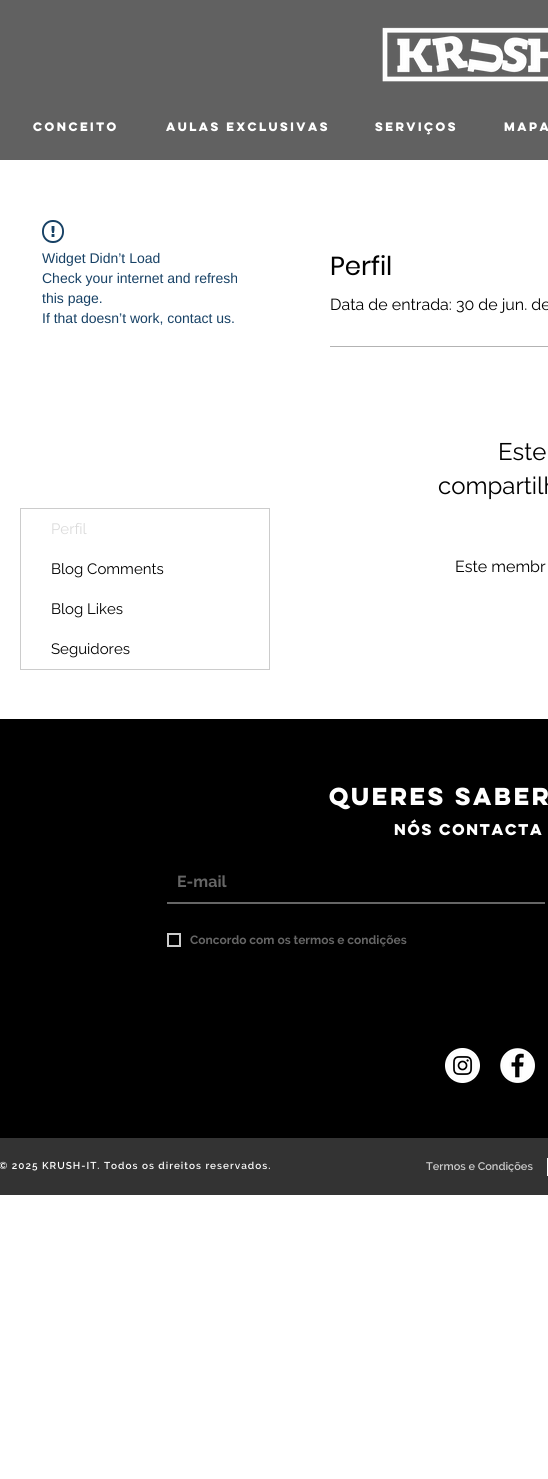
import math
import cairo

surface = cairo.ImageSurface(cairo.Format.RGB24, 548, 1479)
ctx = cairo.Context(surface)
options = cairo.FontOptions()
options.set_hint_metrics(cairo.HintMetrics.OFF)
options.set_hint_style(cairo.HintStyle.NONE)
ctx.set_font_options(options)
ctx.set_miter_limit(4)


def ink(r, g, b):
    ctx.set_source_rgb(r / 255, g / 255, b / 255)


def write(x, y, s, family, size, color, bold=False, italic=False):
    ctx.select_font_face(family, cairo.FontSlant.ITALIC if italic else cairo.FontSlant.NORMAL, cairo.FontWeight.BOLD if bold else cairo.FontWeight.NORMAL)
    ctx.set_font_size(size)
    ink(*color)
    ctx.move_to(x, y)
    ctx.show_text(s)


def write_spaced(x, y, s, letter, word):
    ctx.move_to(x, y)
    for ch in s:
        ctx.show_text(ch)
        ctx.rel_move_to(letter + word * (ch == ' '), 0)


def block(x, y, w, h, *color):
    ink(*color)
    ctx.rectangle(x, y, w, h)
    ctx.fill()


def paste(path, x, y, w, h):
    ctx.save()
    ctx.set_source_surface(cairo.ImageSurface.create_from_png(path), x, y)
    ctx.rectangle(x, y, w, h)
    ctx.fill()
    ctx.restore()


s1 = dict(family="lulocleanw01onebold", size=11, color=(255, 255, 255), bold=True)
s2 = dict(family="Liberation Sans", size=14, color=(23, 65, 101))
s3 = dict(family="Raleway", size=15, color=(219, 219, 219))
s4 = dict(family="Raleway", size=15, color=(0, 0, 0))
s5 = dict(family="Poppins", size=26, color=(0, 0, 0))
s6 = dict(family="Raleway", size=16, color=(0, 0, 0))
s7 = dict(family="Raleway", size=24, color=(0, 0, 0))
s8 = dict(family="Raleway", size=16, color=(102, 102, 102), bold=True)
s9 = dict(family="Raleway", size=12, color=(102, 102, 102), bold=True)
s10 = dict(family="Raleway SemiBold", size=11, color=(204, 204, 204))

ink(255, 255, 255)
ctx.paint()
block(0, 0, 548, 160, 97, 97, 97)
paste("pic1.png", 382, 27, 166, 55)
write(33, 131, "Conceito", **s1)
write(166, 131, "Aulas Exclusivas", **s1)
write(375, 131, "Serviços", **s1)
write(504, 131, "Mapa", **s1)
paste("pic2.png", 42, 220, 22, 23)
write(42, 263, "Widget Didn’t Load", **s2)
write(42, 283, "Check your internet and refresh", **s2)
write(42, 303, "this page.", **s2)
write(42, 323, "If that doesn’t work, contact us.", **s2)
ctx.rectangle(20.5, 508.5, 249, 161)
ink(204, 204, 204)
ctx.set_line_width(1)
ctx.stroke()
write(51, 534, "Perfil", **s3)
write(51, 574, "Blog Comments", **s4)
write(51, 614, "Blog Likes", **s4)
write(51, 654, "Seguidores", **s4)
write(330, 275, "Perfil", **s5)
write(330, 310, "Data de entrada: 30 de jun. de", **s6)
block(330, 346, 218, 1, 179, 179, 179)
write(498, 460, "Este", **s7)
write(438, 494, "compartilh", **s7)
write(455, 572, "Este membr", **s6)
block(0, 719, 548, 419, 0, 0, 0)
ctx.select_font_face("lulocleanw01onebold", cairo.FontSlant.NORMAL, cairo.FontWeight.BOLD)
ctx.set_font_size(22)
ink(255, 255, 255)
write_spaced(329, 805, "queres saber", -2.25, 0)
ctx.set_font_size(14)
write_spaced(394, 835, "nós contacta", -1.4, 0)
block(167, 902, 378, 2, 102, 102, 102)
write(177, 887, "E-mail", **s8)
ctx.rectangle(168, 934, 12, 12)
ink(204, 204, 204)
ctx.set_line_width(2)
ctx.stroke()
write(190, 944, "Concordo com os termos e condições", **s9)
paste("pic3.png", 445, 1048, 35, 35)
paste("pic4.png", 500, 1048, 35, 35)
block(0, 1138, 548, 57, 51, 51, 51)
ctx.select_font_face("Raleway SemiBold")
ctx.set_font_size(10)
ink(255, 255, 255)
write_spaced(-1, 1169, "© 2025 KRUSH-IT. Todos os direitos reservados.", 1, 0)
write(426, 1170, "Termos e Condições", **s10)
block(547, 1158, 1, 18, 255, 255, 255)
surface.write_to_png("screenshot.png")
